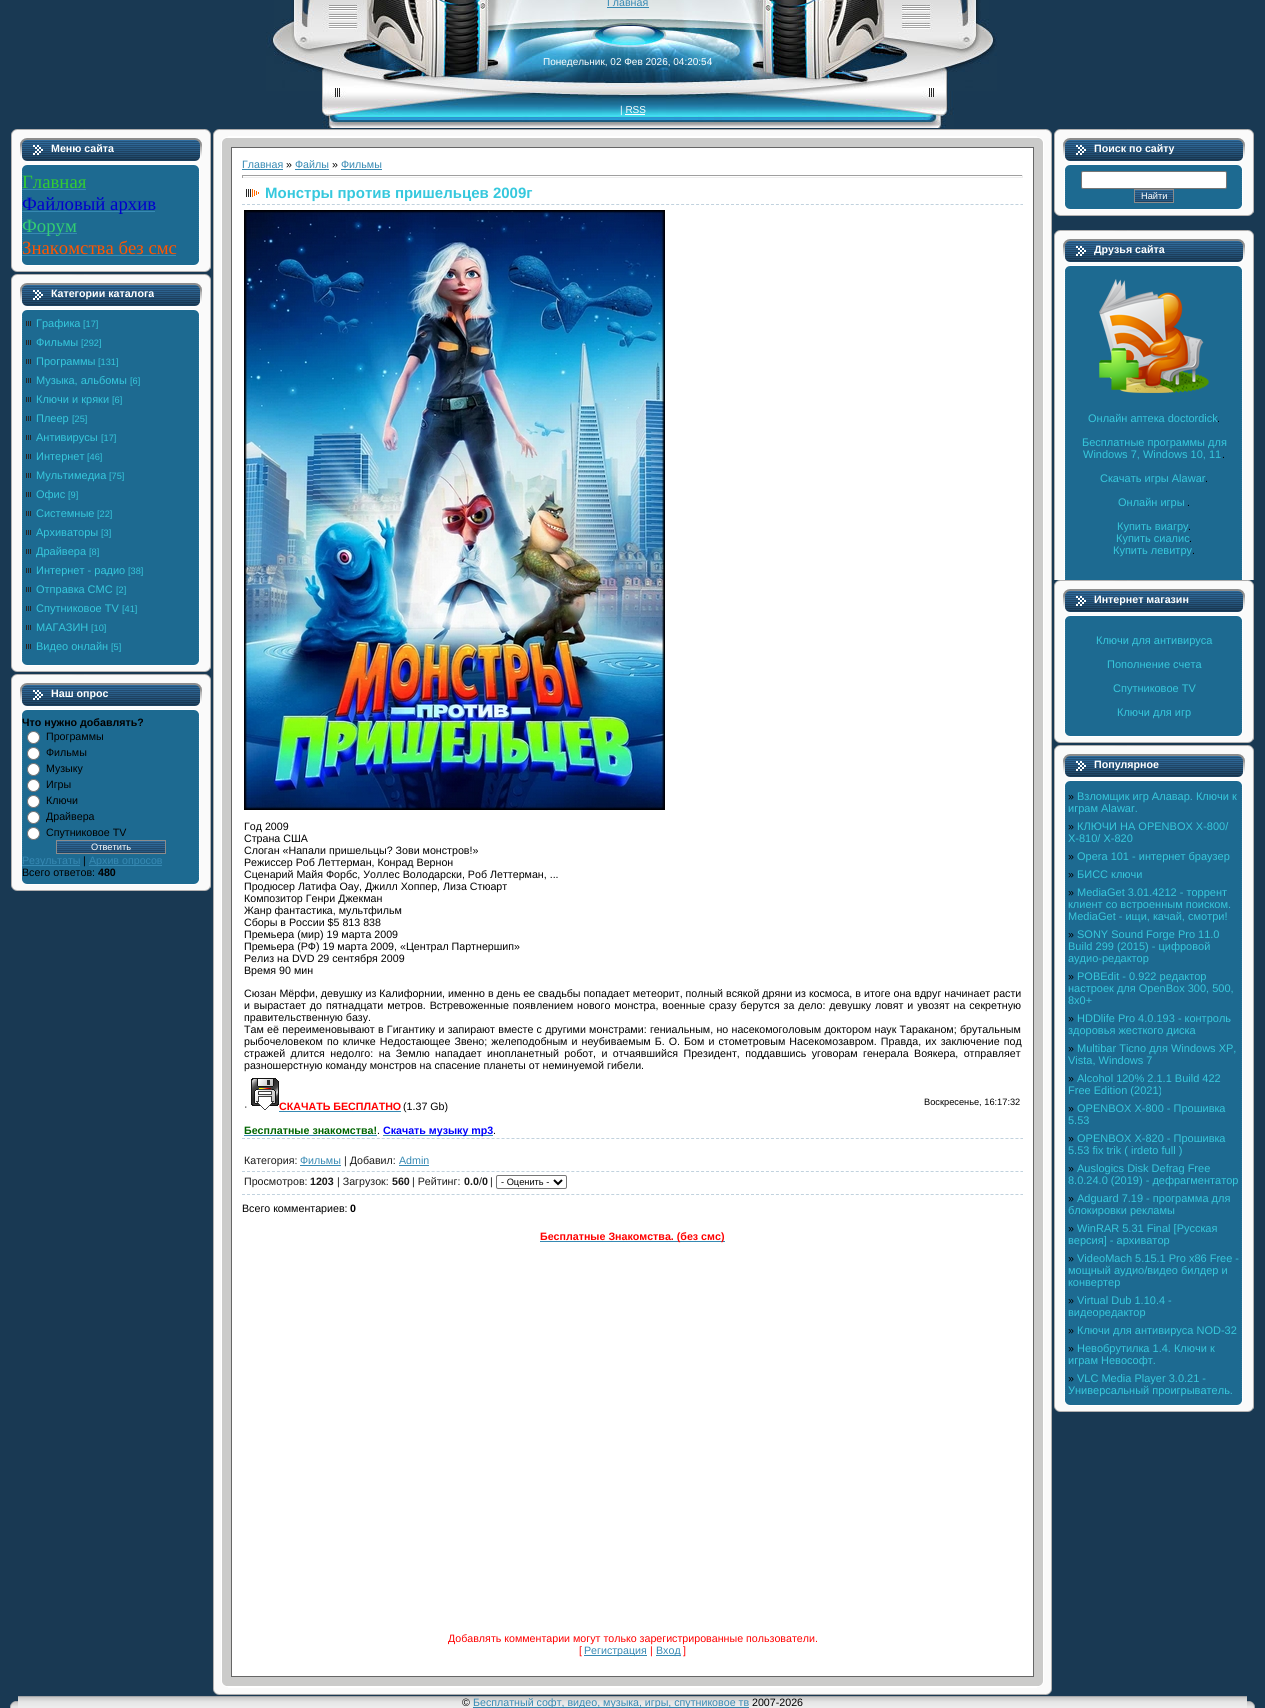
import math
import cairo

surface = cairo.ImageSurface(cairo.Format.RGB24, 1265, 1708)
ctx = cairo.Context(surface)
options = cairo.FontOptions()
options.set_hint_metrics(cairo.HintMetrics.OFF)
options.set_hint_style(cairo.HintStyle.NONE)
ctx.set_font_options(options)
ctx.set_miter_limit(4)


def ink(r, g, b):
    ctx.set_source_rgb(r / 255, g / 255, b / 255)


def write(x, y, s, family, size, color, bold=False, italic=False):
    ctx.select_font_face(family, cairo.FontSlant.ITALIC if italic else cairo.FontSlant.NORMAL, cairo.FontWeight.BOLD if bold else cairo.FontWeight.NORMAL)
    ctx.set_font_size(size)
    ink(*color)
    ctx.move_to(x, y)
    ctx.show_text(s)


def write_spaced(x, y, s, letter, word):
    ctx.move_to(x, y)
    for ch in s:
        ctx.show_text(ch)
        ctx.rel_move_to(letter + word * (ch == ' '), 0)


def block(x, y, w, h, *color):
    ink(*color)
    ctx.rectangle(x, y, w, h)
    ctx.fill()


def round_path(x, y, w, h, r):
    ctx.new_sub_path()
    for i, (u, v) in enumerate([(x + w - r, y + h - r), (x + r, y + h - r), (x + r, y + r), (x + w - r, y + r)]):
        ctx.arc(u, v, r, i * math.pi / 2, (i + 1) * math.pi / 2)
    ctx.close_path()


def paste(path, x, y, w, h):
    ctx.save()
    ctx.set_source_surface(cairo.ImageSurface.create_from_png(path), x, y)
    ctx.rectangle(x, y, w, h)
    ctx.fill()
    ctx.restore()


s1 = dict(family="Liberation Sans", size=10.67, color=(54, 137, 179))
s2 = dict(family="Liberation Sans", size=10, color=(255, 255, 255))
s3 = dict(family="Liberation Sans", size=10.67, color=(255, 255, 255), bold=True)
s4 = dict(family="Liberation Serif", size=18.75, color=(50, 205, 50))
s5 = dict(family="Liberation Serif", size=18.75, color=(0, 0, 205))
s6 = dict(family="Liberation Serif", size=18.75, color=(50, 205, 114))
s7 = dict(family="Liberation Serif", size=18.75, color=(255, 85, 0))
s8 = dict(family="Liberation Sans", size=11, color=(54, 200, 221))
s9 = dict(family="Liberation Sans", size=9.25, color=(54, 200, 221))
s10 = dict(family="Liberation Sans", size=10.67, color=(0, 0, 0), bold=True)
s11 = dict(family="Liberation Sans", size=10.67, color=(0, 0, 0))
s12 = dict(family="Liberation Sans", size=9.25, color=(255, 255, 255))
s13 = dict(family="Liberation Sans", size=15, color=(54, 200, 221), bold=True)
s14 = dict(family="Liberation Sans", size=10.67, color=(255, 0, 0), bold=True)
s15 = dict(family="Liberation Sans", size=10.67, color=(0, 100, 0), bold=True)
s16 = dict(family="Liberation Sans", size=10.67, color=(0, 0, 255), bold=True)
s17 = dict(family="Liberation Sans", size=9.25, color=(0, 0, 0))
s18 = dict(family="Liberation Sans", size=10.67, color=(26, 26, 26))
s19 = dict(family="Liberation Sans", size=10.67, color=(26, 26, 26), bold=True)
s20 = dict(family="Liberation Sans", size=10.67, color=(255, 0, 0))

ink(25, 57, 83)
ctx.paint()
paste("pic1.png", 274, 0, 250, 32)
paste("pic2.png", 524, 0, 209, 32)
write(607, 6, "Главная", **s1)
block(607, 7, 42, 1, 54, 137, 179)
paste("pic3.png", 733, 0, 256, 32)
paste("pic4.png", 266, 32, 258, 59)
paste("pic5.png", 524, 32, 209, 59)
write(543, 65, "Понедельник, 02 Фев 2026, 04:20:54", **s2)
paste("pic6.png", 733, 32, 264, 59)
paste("pic7.png", 322, 91, 632, 37)
write(620, 113, "| RSS", **s2)
block(625, 114, 20, 1, 255, 255, 255)
paste("pic8.png", 11, 129, 200, 42)
write(51, 152, "Меню сайта", **s3)
paste("pic9.png", 11, 171, 200, 88)
write(22, 188, "Главная", **s4)
block(22, 189, 64, 1, 54, 137, 179)
block(22, 211, 133, 1, 54, 137, 179)
write(22, 210, "Файловый архив", **s5)
block(22, 233, 55, 1, 54, 137, 179)
write(22, 232, "Форум", **s6)
write(22, 254, "Знакомства без смс", **s7)
block(22, 255, 154, 1, 54, 137, 179)
paste("pic10.png", 11, 259, 200, 13)
paste("pic8.png", 11, 274, 200, 42)
write(51, 297, "Категории каталога", **s3)
paste("pic11.png", 11, 316, 200, 343)
paste("pic12.png", 26, 321, 5, 5)
write(36, 327, "Графика", **s8)
write(83, 327, "[17]", **s9)
paste("pic12.png", 26, 340, 5, 5)
write(36, 346, "Фильмы", **s8)
write(81, 346, "[292]", **s9)
paste("pic12.png", 26, 359, 5, 5)
write(36, 365, "Программы", **s8)
write(98, 365, "[131]", **s9)
paste("pic12.png", 26, 378, 5, 5)
write(36, 384, "Музыка, альбомы", **s8)
write(130, 384, "[6]", **s9)
paste("pic12.png", 26, 397, 5, 5)
write(36, 403, "Ключи и кряки", **s8)
write(112, 403, "[6]", **s9)
paste("pic12.png", 26, 416, 5, 5)
write(36, 422, "Плеер", **s8)
write(72, 422, "[25]", **s9)
paste("pic12.png", 26, 435, 5, 5)
write(36, 441, "Антивирусы", **s8)
write(101, 441, "[17]", **s9)
paste("pic12.png", 26, 454, 5, 5)
write(36, 460, "Интернет", **s8)
write(87, 460, "[46]", **s9)
paste("pic12.png", 26, 473, 5, 5)
write(36, 479, "Мультимедиа", **s8)
write(109, 479, "[75]", **s9)
paste("pic12.png", 26, 492, 5, 5)
write(36, 498, "Офис", **s8)
write(68, 498, "[9]", **s9)
paste("pic12.png", 26, 511, 5, 5)
write(36, 517, "Системные", **s8)
write(97, 517, "[22]", **s9)
paste("pic12.png", 26, 530, 5, 5)
write(36, 536, "Архиваторы", **s8)
write(101, 536, "[3]", **s9)
paste("pic12.png", 26, 549, 5, 5)
write(36, 555, "Драйвера", **s8)
write(89, 555, "[8]", **s9)
paste("pic12.png", 26, 568, 5, 5)
write(36, 574, "Интернет - радио", **s8)
write(128, 574, "[38]", **s9)
paste("pic12.png", 26, 587, 5, 5)
write(36, 593, "Отправка СМС", **s8)
write(116, 593, "[2]", **s9)
paste("pic12.png", 26, 606, 5, 5)
write(36, 612, "Спутниковое ТV", **s8)
write(122, 612, "[41]", **s9)
paste("pic12.png", 26, 625, 5, 5)
write(36, 631, "МАГАЗИН", **s8)
write(91, 631, "[10]", **s9)
paste("pic12.png", 26, 644, 5, 5)
write(36, 650, "Видео онлайн", **s8)
write(111, 650, "[5]", **s9)
paste("pic10.png", 11, 659, 200, 13)
paste("pic8.png", 11, 674, 200, 42)
write(51, 697, "Наш опрос", **s3)
paste("pic13.png", 11, 716, 200, 162)
write(22, 726, "Что нужно добавлять?", **s10)
ink(255, 255, 255)
ctx.new_path()
ctx.arc(33.5, 737.5, 6, 0, 2 * math.pi)
ctx.fill_preserve()
ink(118, 118, 118)
ctx.set_line_width(1)
ctx.stroke()
write(46, 740, "Программы", **s11)
ink(255, 255, 255)
ctx.new_path()
ctx.arc(33.5, 753.5, 6, 0, 2 * math.pi)
ctx.fill_preserve()
ink(118, 118, 118)
ctx.stroke()
write(46, 756, "Фильмы", **s11)
ink(255, 255, 255)
ctx.new_path()
ctx.arc(33.5, 769.5, 6, 0, 2 * math.pi)
ctx.fill_preserve()
ink(118, 118, 118)
ctx.stroke()
write(46, 772, "Музыку", **s11)
ink(255, 255, 255)
ctx.new_path()
ctx.arc(33.5, 785.5, 6, 0, 2 * math.pi)
ctx.fill_preserve()
ink(118, 118, 118)
ctx.stroke()
write(46, 788, "Игры", **s11)
ink(255, 255, 255)
ctx.new_path()
ctx.arc(33.5, 801.5, 6, 0, 2 * math.pi)
ctx.fill_preserve()
ink(118, 118, 118)
ctx.stroke()
write(46, 804, "Ключи", **s11)
ink(255, 255, 255)
ctx.new_path()
ctx.arc(33.5, 817.5, 6, 0, 2 * math.pi)
ctx.fill_preserve()
ink(118, 118, 118)
ctx.stroke()
write(46, 820, "Драйвера", **s11)
ink(255, 255, 255)
ctx.new_path()
ctx.arc(33.5, 833.5, 6, 0, 2 * math.pi)
ctx.fill_preserve()
ink(118, 118, 118)
ctx.stroke()
write(46, 836, "Спутниковое ТV", **s11)
paste("pic14.png", 57, 841, 108, 12)
ctx.rectangle(56.5, 840.5, 109, 13)
ink(140, 140, 140)
ctx.stroke()
write(91, 850, "Ответить", **s12)
block(22, 865, 58, 1, 54, 137, 179)
write(22, 864, "Результаты", **s1)
write(83, 864, "|", **s11)
block(89, 865, 73, 1, 54, 137, 179)
write(89, 864, "Архив опросов", **s1)
write(22, 876, "Всего ответов:", **s11)
write(98, 876, "480", **s10)
paste("pic10.png", 11, 878, 200, 13)
paste("pic15.png", 213, 129, 18, 18)
paste("pic16.png", 231, 129, 803, 18)
paste("pic17.png", 1034, 129, 18, 18)
paste("pic18.png", 213, 147, 18, 1530)
ink(255, 255, 255)
ctx.rectangle(231.5, 147.5, 802, 1529)
ctx.fill_preserve()
ink(102, 102, 102)
ctx.stroke()
write(242, 168, "Главная", **s1)
block(242, 169, 41, 1, 54, 137, 179)
write(286, 168, "»", **s11)
write(295, 168, "Файлы", **s1)
block(295, 169, 34, 1, 54, 137, 179)
write(332, 168, "»", **s11)
write(341, 168, "Фильмы", **s1)
block(341, 169, 41, 1, 54, 137, 179)
block(242, 175, 781, 1, 159, 159, 159)
block(1022, 175, 1, 3, 238, 238, 238)
block(242, 177, 781, 1, 238, 238, 238)
block(242, 175, 1, 3, 159, 159, 159)
paste("pic19.png", 246, 189, 13, 8)
write(265, 198, "Монстры против пришельцев 2009г", **s13)
ctx.new_path()
ctx.move_to(242, 204.5)
ctx.line_to(1023, 204.5)
ink(193, 210, 222)
ctx.set_dash([3, 1.99])
ctx.stroke()
paste("pic20.png", 244, 210, 421, 600)
write(244, 830, "Год 2009", **s11)
write(244, 842, "Страна США", **s11)
write(244, 854, "Слоган «Напали пришельцы? Зови монстров!»", **s11)
write(244, 866, "Режиссер Роб Леттерман, Конрад Вернон", **s11)
write(244, 878, "Сценарий Майя Форбс, Уоллес Володарски, Роб Леттерман, ...", **s11)
write(244, 890, "Продюсер Латифа Оау, Джилл Хоппер, Лиза Стюарт", **s11)
write(244, 902, "Композитор Генри Джекман", **s11)
write(244, 914, "Жанр фантастика, мультфильм", **s11)
write(244, 926, "Сборы в России $5 813 838", **s11)
write(244, 938, "Премьера (мир) 19 марта 2009", **s11)
write(244, 950, "Премьера (РФ) 19 марта 2009, «Централ Партнершип»", **s11)
write(244, 962, "Релиз на DVD 29 сентября 2009", **s11)
write(244, 974, "Время 90 мин", **s11)
write(244, 997, "Сюзан Мёрфи, девушку из Калифорнии, именно в день ее свадьбы попадает метеорит, полный всякой дряни из космоса, в итоге она вдруг начинает расти", **s11)
write_spaced(244, 1009, "и вырастает до пятнадцати метров. Встревоженные появлением нового монстра, военные сразу берутся за дело: девушку ловят и увозят на секретную", 0, 0.9)
write(244, 1021, "правительственную базу.", **s11)
write_spaced(244, 1033, "Там её переименовывают в Гигантику и запирают вместе с другими монстрами: гениальным, но насекомоголовым доктором наук Тараканом; брутальным", 0, 0.3)
write_spaced(244, 1045, "рыбочеловеком по кличке Недостающее Звено; желеподобным и неубиваемым Б. О. Бом и стометровым Насекомозавром. Правда, их заключение под", 0, 1.1)
write_spaced(244, 1057, "стражей длится недолго: на Землю нападает инопланетный робот, и отчаявшийся Президент, поддавшись уговорам генерала Воякера, отправляет", 0, 2.4)
write(244, 1069, "разношерстную команду монстров на спасение планеты от неминуемой гибели.", **s11)
write(244, 1110, "·", **s11)
paste("pic21.png", 251, 1078, 28, 32)
write(279, 1110, "СКАЧАТЬ БЕСПЛАТНО", **s14)
block(279, 1111, 122, 1, 54, 137, 179)
write(403, 1110, "(1.37 Gb)", **s11)
write(244, 1134, "Бесплатные знакомства!", **s15)
block(244, 1135, 133, 1, 54, 137, 179)
write(377, 1134, ".", **s11)
block(383, 1135, 110, 1, 54, 137, 179)
write(383, 1134, "Скачать музыку mp3", **s16)
write(493, 1134, ".", **s11)
write(924, 1105, "Воскресенье, 16:17:32", **s17)
ctx.new_path()
ctx.move_to(242, 1138.5)
ctx.line_to(1023, 1138.5)
ink(193, 210, 222)
ctx.stroke()
ctx.new_path()
ctx.move_to(242, 1171.5)
ctx.line_to(1023, 1171.5)
ctx.stroke()
write(244, 1164, "Категория:", **s18)
write(300, 1164, "Фильмы", **s1)
block(300, 1165, 41, 1, 54, 137, 179)
write(344, 1164, "| Добавил:", **s18)
write(399, 1164, "Admin", **s1)
block(399, 1165, 30, 1, 54, 137, 179)
ctx.new_path()
ctx.move_to(242, 1194.5)
ctx.line_to(1023, 1194.5)
ink(193, 210, 222)
ctx.stroke()
write(244, 1185, "Просмотров:", **s18)
write(310, 1185, "1203", **s19)
write(337, 1185, "| Загрузок:", **s18)
write(392, 1185, "560", **s19)
write(412, 1185, "| Рейтинг:", **s18)
write(464, 1185, "0.0", **s19)
write(479, 1185, "/", **s18)
write(482, 1185, "0", **s19)
write(490, 1185, "|", **s18)
round_path(496.5, 1175.5, 70, 13, 1.5)
ink(118, 118, 118)
ctx.set_dash([])
ctx.stroke()
ctx.new_path()
ctx.move_to(554, 1180)
ctx.line_to(558, 1184)
ctx.line_to(562, 1180)
ink(0, 0, 0)
ctx.set_line_width(2)
ctx.stroke()
write(501, 1185, "- Оценить -", **s17)
write(242, 1212, "Всего комментариев:", **s11)
write(350, 1212, "0", **s10)
block(540, 1241, 185, 1, 54, 137, 179)
write(540, 1240, "Бесплатные Знакомства. (без смс)", **s14)
write(448, 1642, "Добавлять комментарии могут только зарегистрированные пользователи.", **s20)
write(579, 1654, "[", **s20)
block(584, 1655, 63, 1, 54, 137, 179)
write(584, 1654, "Регистрация", **s1)
write(650, 1654, "|", **s20)
block(656, 1655, 25, 1, 54, 137, 179)
write(656, 1654, "Вход", **s1)
write(683, 1654, "]", **s20)
paste("pic22.png", 1034, 147, 18, 1530)
paste("pic23.png", 213, 1677, 18, 18)
paste("pic24.png", 231, 1677, 803, 18)
paste("pic25.png", 1034, 1677, 18, 18)
paste("pic8.png", 1054, 129, 200, 42)
write(1094, 152, "Поиск по сайту", **s3)
paste("pic26.png", 1054, 171, 200, 32)
round_path(1081.5, 171.5, 145, 17, 1.5)
ctx.fill_preserve()
ink(118, 118, 118)
ctx.set_line_width(1)
ctx.stroke()
paste("pic27.png", 1135, 190, 38, 12)
ctx.rectangle(1134.5, 189.5, 39, 13)
ink(140, 140, 140)
ctx.stroke()
write(1141, 199, "Найти", **s12)
paste("pic10.png", 1054, 203, 200, 13)
paste("pic8.png", 1054, 230, 200, 42)
write(1094, 253, "Друзья сайта", **s3)
paste("pic28.png", 1054, 272, 200, 308)
paste("pic29.png", 1099, 279, 110, 114)
write(1088, 422, "Онлайн аптека doctordick", **s8)
write(1217, 422, ".", **s11)
write(1082, 446, "Бесплатные программы для", **s8)
write(1083, 458, "Windows 7, Windows 10, 11", **s8)
write(1222, 458, ".", **s11)
write(1100, 482, "Скачать игры Alawar", **s8)
write(1205, 482, ".", **s11)
write(1118, 506, "Онлайн игры", **s8)
write(1187, 506, ".", **s11)
write(1117, 530, "Купить виагру", **s8)
write(1188, 530, ".", **s11)
write(1116, 542, "Купить сиалис", **s8)
write(1189, 542, ".", **s11)
write(1113, 554, "Купить левитру", **s8)
write(1192, 554, ".", **s11)
paste("pic8.png", 1054, 580, 200, 42)
write(1094, 603, "Интернет магазин", **s3)
paste("pic30.png", 1054, 622, 200, 108)
write(1096, 644, "Ключи для антивируса", **s8)
write(1107, 668, "Пополнение счета", **s8)
write(1113, 692, "Спутниковое TV", **s8)
write(1117, 716, "Ключи для игр", **s8)
paste("pic10.png", 1054, 730, 200, 13)
paste("pic8.png", 1054, 745, 200, 42)
write(1094, 768, "Популярное", **s3)
paste("pic31.png", 1054, 787, 200, 612)
write(1068, 800, "»", **s11)
write(1077, 800, "Взломщик игр Алавар. Ключи к", **s8)
write(1068, 812, "играм Alawar.", **s8)
write(1068, 830, "»", **s11)
write(1077, 830, "КЛЮЧИ НА OPENBOX X-800/", **s8)
write(1068, 842, "X-810/ X-820", **s8)
write(1068, 860, "»", **s11)
write(1077, 860, "Opera 101 - интернет браузер", **s8)
write(1068, 878, "»", **s11)
write(1077, 878, "БИСС ключи", **s8)
write(1068, 896, "»", **s11)
write(1077, 896, "MediaGet 3.01.4212 - торрент", **s8)
write(1068, 908, "клиент со встроенным поиском.", **s8)
write(1068, 920, "MediaGet - ищи, качай, смотри!", **s8)
write(1068, 938, "»", **s11)
write(1077, 938, "SONY Sound Forge Pro 11.0", **s8)
write(1068, 950, "Build 299 (2015) - цифровой", **s8)
write(1068, 962, "аудио-редактор", **s8)
write(1068, 980, "»", **s11)
write(1077, 980, "POBEdit - 0.922 редактор", **s8)
write(1068, 992, "настроек для OpenBox 300, 500,", **s8)
write(1068, 1004, "8x0+", **s8)
write(1068, 1022, "»", **s11)
write(1077, 1022, "HDDlife Pro 4.0.193 - контроль", **s8)
write(1068, 1034, "здоровья жесткого диска", **s8)
write(1068, 1052, "»", **s11)
write(1077, 1052, "Multibar Ticno для Windows XP,", **s8)
write(1068, 1064, "Vista, Windows 7", **s8)
write(1068, 1082, "»", **s11)
write(1077, 1082, "Alcohol 120% 2.1.1 Build 422", **s8)
write(1068, 1094, "Free Edition (2021)", **s8)
write(1068, 1112, "»", **s11)
write(1077, 1112, "OPENBOX X-800 - Прошивка", **s8)
write(1068, 1124, "5.53", **s8)
write(1068, 1142, "»", **s11)
write(1077, 1142, "OPENBOX X-820 - Прошивка", **s8)
write(1068, 1154, "5.53 fix trik ( irdeto full )", **s8)
write(1068, 1172, "»", **s11)
write(1077, 1172, "Auslogics Disk Defrag Free", **s8)
write(1068, 1184, "8.0.24.0 (2019) - дефрагментатор", **s8)
write(1068, 1202, "»", **s11)
write(1077, 1202, "Adguard 7.19 - программа для", **s8)
write(1068, 1214, "блокировки рекламы", **s8)
write(1068, 1232, "»", **s11)
write(1077, 1232, "WinRAR 5.31 Final [Русская", **s8)
write(1068, 1244, "версия] - архиватор", **s8)
write(1068, 1262, "»", **s11)
write(1077, 1262, "VideoMach 5.15.1 Pro x86 Free -", **s8)
write(1068, 1274, "мощный аудио/видео билдер и", **s8)
write(1068, 1286, "конвертер", **s8)
write(1068, 1304, "»", **s11)
write(1077, 1304, "Virtual Dub 1.10.4 -", **s8)
write(1068, 1316, "видеоредактор", **s8)
write(1068, 1334, "»", **s11)
write(1077, 1334, "Ключи для антивируса NOD-32", **s8)
write(1068, 1352, "»", **s11)
write(1077, 1352, "Невобрутилка 1.4. Ключи к", **s8)
write(1068, 1364, "играм Невософт.", **s8)
write(1068, 1382, "»", **s11)
write(1077, 1382, "VLC Media Player 3.0.21 -", **s8)
write(1068, 1394, "Универсальный проигрыватель.", **s8)
paste("pic10.png", 1054, 1399, 200, 13)
paste("pic32.png", 10, 1701, 8, 7)
paste("pic33.png", 18, 1696, 1229, 12)
write(462, 1706, "©", **s11)
block(473, 1707, 276, 1, 54, 137, 179)
write(473, 1706, "Бесплатный софт, видео, музыка, игры, спутниковое тв", **s1)
write(752, 1706, "2007-2026", **s11)
paste("pic34.png", 1247, 1701, 8, 7)
surface.write_to_png("screenshot.png")
